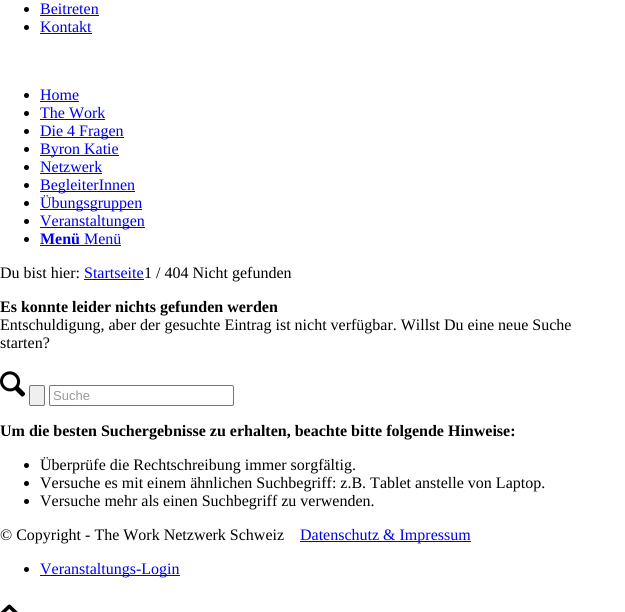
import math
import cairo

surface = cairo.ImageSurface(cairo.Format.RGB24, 625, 612)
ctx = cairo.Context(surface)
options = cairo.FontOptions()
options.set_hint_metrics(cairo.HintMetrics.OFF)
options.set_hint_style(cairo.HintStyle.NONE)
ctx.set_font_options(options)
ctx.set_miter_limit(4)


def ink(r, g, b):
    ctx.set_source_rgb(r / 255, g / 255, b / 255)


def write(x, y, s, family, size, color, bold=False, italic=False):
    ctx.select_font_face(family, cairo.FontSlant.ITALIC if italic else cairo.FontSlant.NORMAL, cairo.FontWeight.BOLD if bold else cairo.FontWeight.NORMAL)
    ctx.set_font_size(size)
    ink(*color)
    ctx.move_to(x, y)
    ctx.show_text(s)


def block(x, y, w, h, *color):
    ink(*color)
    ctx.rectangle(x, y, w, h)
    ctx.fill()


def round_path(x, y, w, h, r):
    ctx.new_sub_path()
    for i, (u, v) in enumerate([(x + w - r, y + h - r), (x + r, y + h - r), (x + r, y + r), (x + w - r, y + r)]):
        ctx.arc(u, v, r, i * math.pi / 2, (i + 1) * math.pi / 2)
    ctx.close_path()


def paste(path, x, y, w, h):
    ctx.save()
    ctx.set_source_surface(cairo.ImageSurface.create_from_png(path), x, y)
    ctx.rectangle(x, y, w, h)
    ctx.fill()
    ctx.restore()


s1 = dict(family="Liberation Serif", size=16, color=(0, 0, 238))
s2 = dict(family="Liberation Serif", size=16, color=(0, 0, 238), bold=True)
s3 = dict(family="Liberation Serif", size=16, color=(0, 0, 0))
s4 = dict(family="Liberation Serif", size=16, color=(0, 0, 0), bold=True)
s5 = dict(family="Liberation Sans", size=13, color=(153, 153, 153))

ink(255, 255, 255)
ctx.paint()
ink(0, 0, 0)
ctx.arc(26.5, 9.5, 2.5, 0, 2 * math.pi)
ctx.fill()
write(40, 14, "Beitreten", **s1)
block(40, 15, 59, 1, 0, 0, 238)
ink(0, 0, 0)
ctx.new_path()
ctx.arc(26.5, 27.5, 2.5, 0, 2 * math.pi)
ctx.fill()
write(40, 32, "Kontakt", **s1)
block(40, 33, 52, 1, 0, 0, 238)
ink(0, 0, 0)
ctx.new_path()
ctx.arc(26.5, 95.5, 2.5, 0, 2 * math.pi)
ctx.fill()
write(40, 100, "Home", **s1)
block(40, 101, 39, 1, 0, 0, 238)
ink(0, 0, 0)
ctx.new_path()
ctx.arc(26.5, 113.5, 2.5, 0, 2 * math.pi)
ctx.fill()
write(40, 118, "The Work", **s1)
block(40, 119, 65, 1, 0, 0, 238)
ink(0, 0, 0)
ctx.new_path()
ctx.arc(26.5, 131.5, 2.5, 0, 2 * math.pi)
ctx.fill()
block(40, 137, 84, 1, 0, 0, 238)
write(40, 136, "Die 4 Fragen", **s1)
ink(0, 0, 0)
ctx.new_path()
ctx.arc(26.5, 149.5, 2.5, 0, 2 * math.pi)
ctx.fill()
block(40, 155, 79, 1, 0, 0, 238)
write(40, 154, "Byron Katie", **s1)
ink(0, 0, 0)
ctx.new_path()
ctx.arc(26.5, 167.5, 2.5, 0, 2 * math.pi)
ctx.fill()
write(40, 172, "Netzwerk", **s1)
block(40, 173, 62, 1, 0, 0, 238)
ink(0, 0, 0)
ctx.new_path()
ctx.arc(26.5, 185.5, 2.5, 0, 2 * math.pi)
ctx.fill()
block(40, 191, 95, 1, 0, 0, 238)
write(40, 190, "BegleiterInnen", **s1)
ink(0, 0, 0)
ctx.new_path()
ctx.arc(26.5, 203.5, 2.5, 0, 2 * math.pi)
ctx.fill()
block(40, 209, 102, 1, 0, 0, 238)
write(40, 208, "Übungsgruppen", **s1)
ink(0, 0, 0)
ctx.new_path()
ctx.arc(26.5, 221.5, 2.5, 0, 2 * math.pi)
ctx.fill()
block(40, 227, 105, 1, 0, 0, 238)
write(40, 226, "Veranstaltungen", **s1)
ink(0, 0, 0)
ctx.new_path()
ctx.arc(26.5, 239.5, 2.5, 0, 2 * math.pi)
ctx.fill()
write(40, 244, "Menü", **s2)
block(40, 245, 81, 1, 0, 0, 238)
write(84, 244, "Menü", **s1)
write(0, 278, "Du bist hier:", **s3)
write(84, 278, "Startseite", **s1)
write(144, 278, "1 / 404 Nicht gefunden", **s3)
block(84, 279, 60, 1, 0, 0, 238)
write(0, 312, "Es konnte leider nichts gefunden werden", **s4)
write(0, 330, "Entschuldigung, aber der gesuchte Eintrag ist nicht verfügbar. Willst Du eine neue Suche", **s3)
write(0, 348, "starten?", **s3)
paste("pic1.png", 0, 371, 25, 26)
ink(239, 239, 239)
round_path(29.5, 385.5, 15, 20, 1.5)
ctx.fill_preserve()
ink(118, 118, 118)
ctx.set_line_width(1)
ctx.stroke()
round_path(49.5, 385.5, 184, 20, 1.5)
ctx.stroke()
write(53, 400, "Suche", **s5)
write(0, 436, "Um die besten Suchergebnisse zu erhalten, beachte bitte folgende Hinweise:", **s4)
ctx.new_path()
ctx.arc(26.5, 465.5, 2.5, 0, 2 * math.pi)
ctx.fill()
write(40, 470, "Überprüfe die Rechtschreibung immer sorgfältig.", **s3)
ctx.new_path()
ctx.arc(26.5, 483.5, 2.5, 0, 2 * math.pi)
ctx.fill()
write(40, 488, "Versuche es mit einem ähnlichen Suchbegriff: z.B. Tablet anstelle von Laptop.", **s3)
ctx.new_path()
ctx.arc(26.5, 501.5, 2.5, 0, 2 * math.pi)
ctx.fill()
write(40, 506, "Versuche mehr als einen Suchbegriff zu verwenden.", **s3)
write(0, 540, "© Copyright - The Work Netzwerk Schweiz", **s3)
block(300, 541, 171, 1, 0, 0, 238)
write(300, 540, "Datenschutz & Impressum", **s1)
ink(0, 0, 0)
ctx.new_path()
ctx.arc(26.5, 569.5, 2.5, 0, 2 * math.pi)
ctx.fill()
block(40, 575, 140, 1, 0, 0, 238)
write(40, 574, "Veranstaltungs-Login", **s1)
paste("pic2.png", 0, 604, 18, 8)
surface.write_to_png("screenshot.png")
